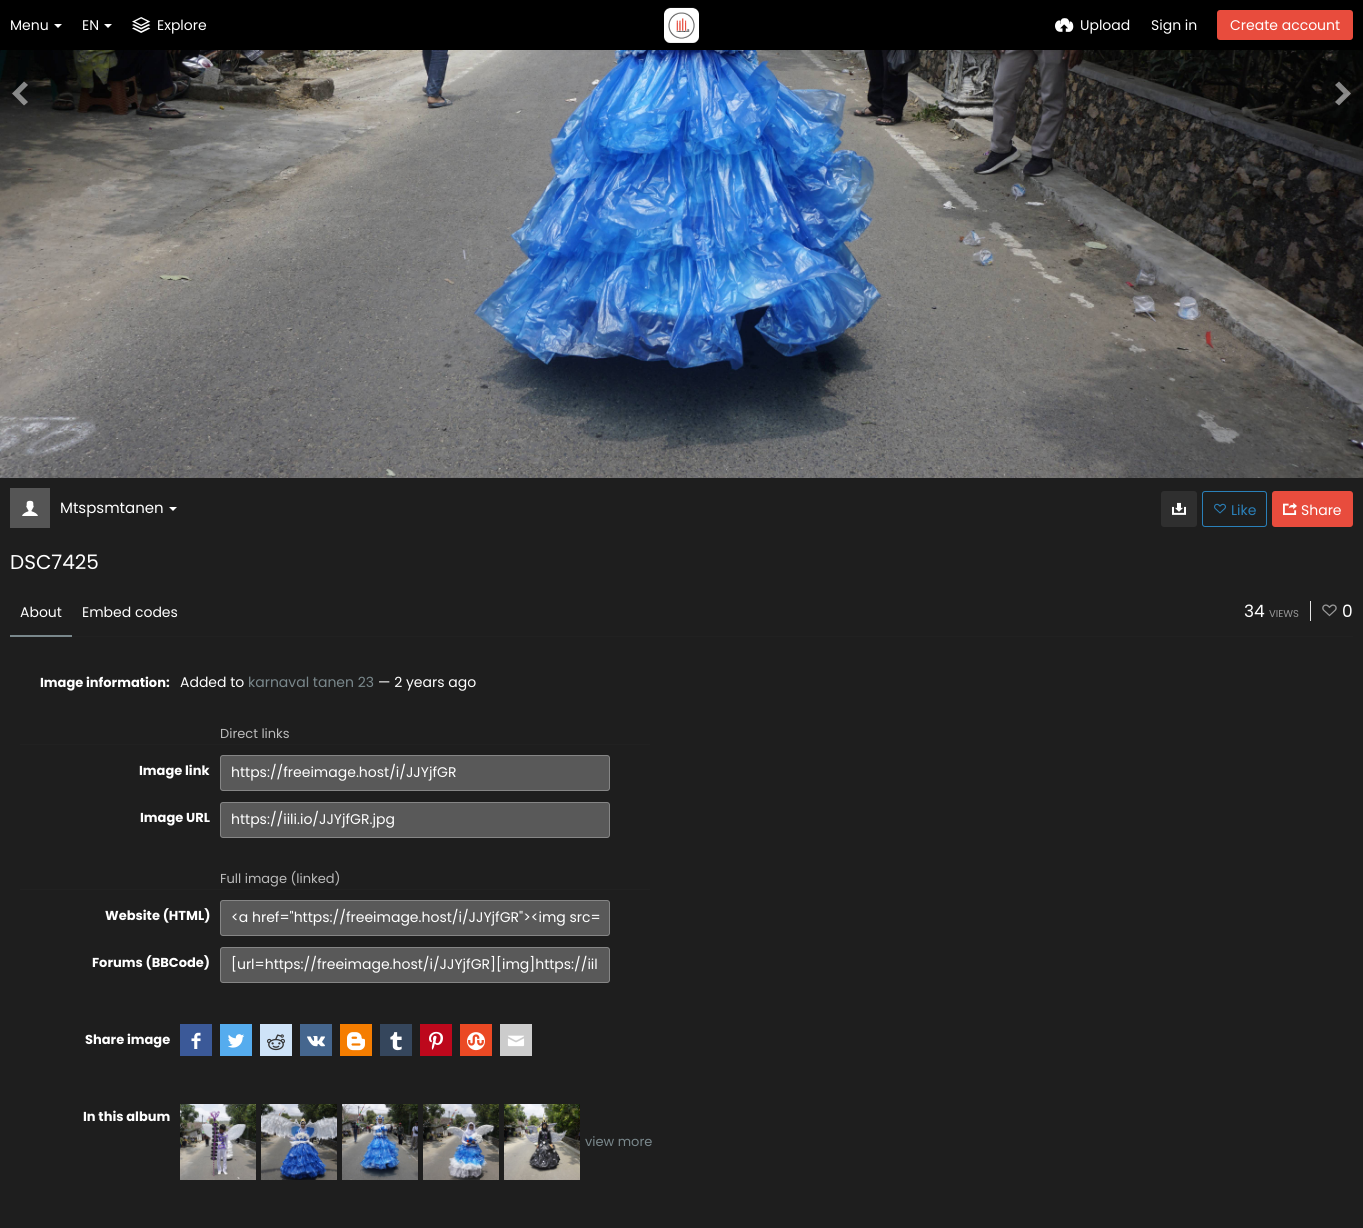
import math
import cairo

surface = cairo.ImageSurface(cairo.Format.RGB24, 1363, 1228)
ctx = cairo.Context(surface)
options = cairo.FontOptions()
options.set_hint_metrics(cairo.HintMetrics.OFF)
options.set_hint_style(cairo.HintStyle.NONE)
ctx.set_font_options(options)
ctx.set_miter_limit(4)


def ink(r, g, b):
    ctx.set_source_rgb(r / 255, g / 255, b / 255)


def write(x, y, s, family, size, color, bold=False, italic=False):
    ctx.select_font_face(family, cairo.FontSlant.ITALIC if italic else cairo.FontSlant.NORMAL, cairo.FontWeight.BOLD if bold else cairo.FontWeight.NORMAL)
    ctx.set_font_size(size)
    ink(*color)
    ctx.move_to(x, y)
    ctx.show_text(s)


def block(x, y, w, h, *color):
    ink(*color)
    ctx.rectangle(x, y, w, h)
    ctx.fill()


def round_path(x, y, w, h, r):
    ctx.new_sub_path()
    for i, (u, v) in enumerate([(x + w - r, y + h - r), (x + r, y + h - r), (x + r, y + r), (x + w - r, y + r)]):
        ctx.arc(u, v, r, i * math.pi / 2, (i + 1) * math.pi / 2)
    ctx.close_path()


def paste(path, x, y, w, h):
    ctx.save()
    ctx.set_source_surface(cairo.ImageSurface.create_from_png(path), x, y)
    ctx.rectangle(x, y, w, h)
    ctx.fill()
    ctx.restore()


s1 = dict(family="Poppins", size=14, color=(255, 255, 255))
s2 = dict(family="Poppins", size=15, color=(255, 255, 255))
s3 = dict(family="Poppins", size=14, color=(42, 128, 185))
s4 = dict(family="Poppins", size=20, color=(255, 255, 255))
s5 = dict(family="Poppins", size=17, color=(255, 255, 255))
s6 = dict(family="Poppins", size=10, color=(153, 153, 153))
s7 = dict(family="Poppins", size=13, color=(255, 255, 255), bold=True)
s8 = dict(family="Poppins", size=14, color=(122, 136, 140))
s9 = dict(family="Poppins", size=13, color=(187, 187, 187))
s10 = dict(family="Poppins", size=13, color=(122, 136, 140))

ink(30, 30, 30)
ctx.paint()
block(0, 0, 1363, 50, 0, 0, 0)
write(10, 30, "Menu", **s1)
ctx.new_path()
ctx.move_to(54, 24)
ctx.line_to(62, 24)
ctx.line_to(58, 28)
ctx.close_path()
ctx.fill()
write(82, 30, "EN", **s1)
ctx.new_path()
ctx.move_to(104, 24)
ctx.line_to(112, 24)
ctx.line_to(108, 28)
ctx.close_path()
ctx.fill()
paste("pic1.png", 132, 17, 19, 16)
write(157, 30, "Explore", **s1)
paste("pic2.png", 664, 7, 35, 36)
paste("pic3.png", 1055, 18, 19, 14)
write(1080, 30, "Upload", **s1)
write(1151, 30, "Sign in", **s1)
ink(232, 76, 61)
round_path(1217, 10, 136, 30, 3)
ctx.fill()
write(1230, 30, "Create account", **s1)
paste("pic4.png", 0, 50, 1363, 428)
ctx.set_source_rgba(1, 1, 1, 0.5)
ctx.new_path()
ctx.move_to(24, 81.5)
ctx.line_to(12, 93.5)
ctx.line_to(24, 105.5)
ctx.line_to(28, 102)
ctx.line_to(19.5, 93.5)
ctx.line_to(28, 85)
ctx.close_path()
ctx.fill()
ctx.new_path()
ctx.move_to(1339, 81.5)
ctx.line_to(1351, 93.5)
ctx.line_to(1339, 105.5)
ctx.line_to(1335, 102)
ctx.line_to(1343.5, 93.5)
ctx.line_to(1335, 85)
ctx.close_path()
ctx.fill()
block(10, 488, 40, 40, 85, 85, 85)
paste("pic5.png", 22, 500, 16, 16)
write(60, 513, "Mtspsmtanen", **s2)
ctx.new_path()
ctx.move_to(169, 507)
ctx.line_to(177, 507)
ctx.line_to(173, 511)
ctx.close_path()
ctx.fill()
ink(47, 47, 47)
round_path(1161, 491, 36, 36, 3)
ctx.fill()
paste("pic6.png", 1172, 502, 14, 13)
round_path(1202.5, 491.5, 64, 35, 2.5)
ink(42, 128, 185)
ctx.set_line_width(1)
ctx.stroke()
paste("pic7.png", 1214, 503, 12, 11)
write(1231, 515, "Like", **s3)
ink(232, 76, 61)
round_path(1272, 491, 81, 36, 3)
ctx.fill()
paste("pic8.png", 1283, 502, 14, 13)
write(1301, 515, "Share", **s1)
write(10, 569, "DSC7425", **s4)
block(72, 636, 1281, 1, 33, 33, 33)
block(10, 635, 62, 2, 122, 136, 140)
write(20, 617, "About", **s1)
write(82, 617, "Embed codes", **s1)
write(1244, 617, "34", **s5)
write(1269, 617, "VIEWS", **s6)
block(1310, 601, 1, 20, 229, 229, 229)
paste("pic9.png", 1322, 604, 15, 13)
write(1342, 617, "0", **s5)
write(40, 687, "Image information:", **s7)
write(180, 687, "Added to", **s1)
write(248, 687, "karnaval tanen 23", **s8)
write(378, 687, "— 2 years ago", **s1)
block(20, 744, 630, 1, 33, 33, 33)
write(220, 738, "Direct links", **s9)
write(139, 775, "Image link", **s7)
ink(89, 89, 89)
round_path(220.5, 755.5, 389, 35, 2.5)
ctx.fill_preserve()
ink(134, 134, 134)
ctx.stroke()
write(231, 777, "https://freeimage.host/i/JJYjfGR", **s1)
write(140, 822, "Image URL", **s7)
ink(89, 89, 89)
round_path(220.5, 802.5, 389, 35, 2.5)
ctx.fill_preserve()
ink(134, 134, 134)
ctx.stroke()
write(231, 824, "https://iili.io/JJYjfGR.jpg", **s1)
block(20, 889, 630, 1, 33, 33, 33)
write(220, 883, "Full image (linked)", **s9)
write(105, 920, "Website (HTML)", **s7)
ink(89, 89, 89)
round_path(220.5, 900.5, 389, 35, 2.5)
ctx.fill_preserve()
ink(134, 134, 134)
ctx.stroke()
write(231, 922, "<a href=\"https://freeimage.host/i/JJYjfGR\"><img src=", **s1)
write(92, 967, "Forums (BBCode)", **s7)
ink(89, 89, 89)
round_path(220.5, 947.5, 389, 35, 2.5)
ctx.fill_preserve()
ink(134, 134, 134)
ctx.stroke()
write(231, 969, "[url=https://freeimage.host/i/JJYjfGR][img]https://iil", **s1)
write(85, 1044, "Share image", **s7)
block(180, 1024, 32, 32, 59, 89, 152)
paste("pic10.png", 191, 1032, 10, 17)
block(220, 1024, 32, 32, 85, 172, 238)
paste("pic11.png", 228, 1034, 17, 14)
block(260, 1024, 32, 32, 206, 227, 248)
paste("pic12.png", 267, 1034, 18, 17)
block(300, 1024, 32, 32, 69, 102, 142)
paste("pic13.png", 307, 1036, 18, 11)
block(340, 1024, 32, 32, 245, 125, 0)
paste("pic14.png", 347, 1032, 18, 19)
block(380, 1024, 32, 32, 53, 70, 92)
paste("pic15.png", 390, 1032, 12, 19)
block(420, 1024, 32, 32, 189, 8, 28)
paste("pic16.png", 429, 1031, 14, 19)
block(460, 1024, 32, 32, 235, 73, 36)
paste("pic17.png", 467, 1032, 18, 19)
block(500, 1024, 32, 32, 204, 204, 204)
paste("pic18.png", 507, 1035, 18, 12)
write(83, 1121, "In this album", **s7)
paste("pic19.png", 180, 1104, 76, 76)
paste("pic20.png", 261, 1104, 76, 76)
paste("pic21.png", 342, 1104, 76, 76)
paste("pic22.png", 423, 1104, 76, 76)
paste("pic23.png", 504, 1104, 76, 76)
write(585, 1146, "view more", **s10)
surface.write_to_png("screenshot.png")
